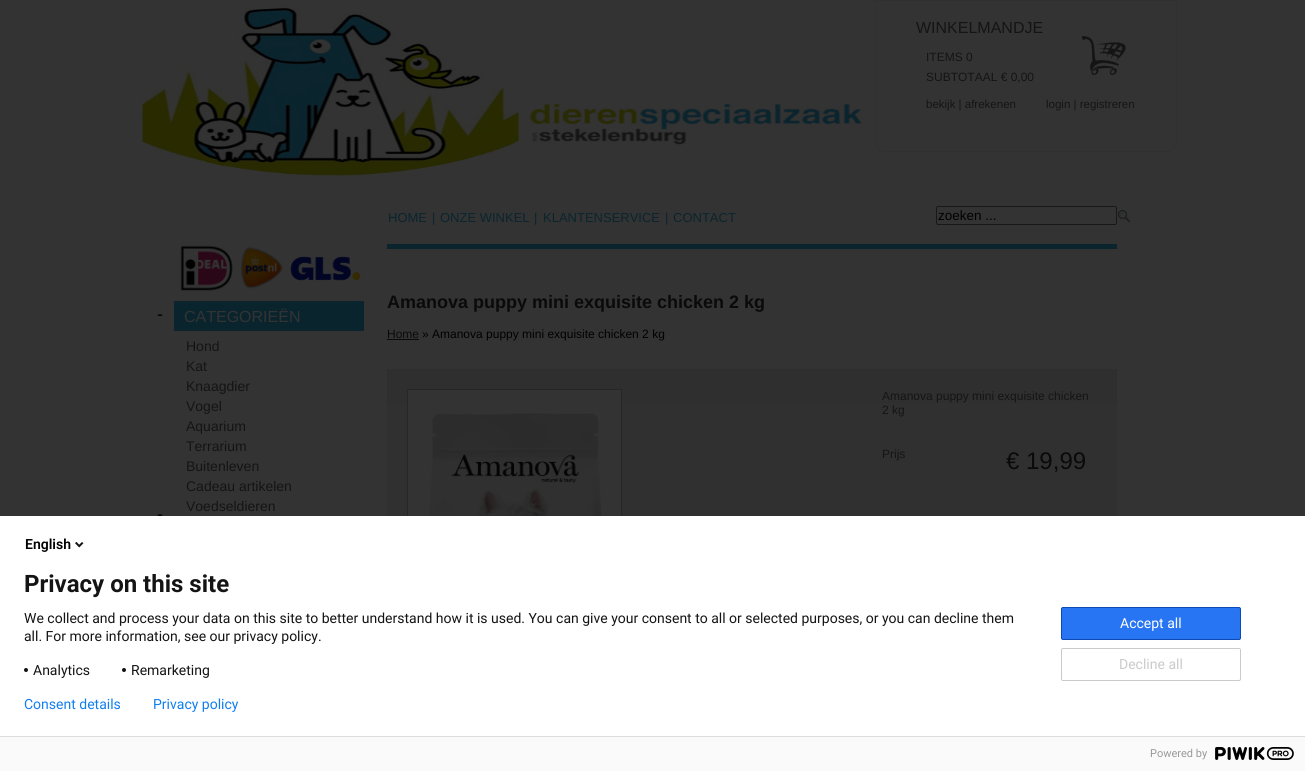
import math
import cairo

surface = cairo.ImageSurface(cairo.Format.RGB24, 1305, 771)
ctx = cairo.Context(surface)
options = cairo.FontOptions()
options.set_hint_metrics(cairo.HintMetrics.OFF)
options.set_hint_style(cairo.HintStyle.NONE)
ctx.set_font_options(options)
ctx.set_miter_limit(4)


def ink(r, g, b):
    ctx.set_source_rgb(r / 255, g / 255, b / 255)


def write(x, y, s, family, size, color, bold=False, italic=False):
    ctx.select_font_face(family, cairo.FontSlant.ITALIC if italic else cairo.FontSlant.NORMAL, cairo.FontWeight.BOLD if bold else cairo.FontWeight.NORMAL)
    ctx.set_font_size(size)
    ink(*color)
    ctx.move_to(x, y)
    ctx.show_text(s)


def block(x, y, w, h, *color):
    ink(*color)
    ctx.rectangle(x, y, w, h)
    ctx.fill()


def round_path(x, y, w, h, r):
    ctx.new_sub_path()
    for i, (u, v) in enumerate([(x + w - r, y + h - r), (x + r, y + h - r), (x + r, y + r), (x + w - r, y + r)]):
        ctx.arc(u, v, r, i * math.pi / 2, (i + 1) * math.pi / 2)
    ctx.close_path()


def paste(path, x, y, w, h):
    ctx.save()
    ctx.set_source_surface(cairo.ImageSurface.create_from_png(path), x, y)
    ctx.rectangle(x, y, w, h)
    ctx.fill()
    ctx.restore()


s1 = dict(family="Liberation Sans", size=16, color=(20, 20, 20))
s2 = dict(family="Liberation Sans", size=12, color=(20, 20, 20))
s3 = dict(family="Liberation Sans", size=11.5, color=(20, 20, 20))
s4 = dict(family="Liberation Sans", size=13, color=(10, 36, 46))
s5 = dict(family="Liberation Sans", size=13.5, color=(0, 0, 0))
s6 = dict(family="Liberation Sans", size=18, color=(0, 0, 0))
s7 = dict(family="Liberation Sans", size=16, color=(51, 51, 51))
s8 = dict(family="Liberation Sans", size=14, color=(20, 20, 20))
s9 = dict(family="Liberation Sans", size=18, color=(10, 10, 10), bold=True)
s10 = dict(family="Liberation Sans", size=12, color=(10, 10, 10))
s11 = dict(family="Liberation Sans", size=12, color=(0, 0, 0))
s12 = dict(family="Liberation Sans", size=24, color=(10, 10, 10))
s13 = dict(family="Roboto SemiBold", size=14, color=(0, 0, 0))
s14 = dict(family="Roboto", size=24, color=(20, 20, 20), bold=True)
s15 = dict(family="Roboto", size=14, color=(20, 20, 20))
s16 = dict(family="Roboto", size=14, color=(255, 255, 255))
s17 = dict(family="Roboto", size=14, color=(202, 202, 202))
s18 = dict(family="Roboto", size=14, color=(16, 126, 241))
s19 = dict(family="Roboto", size=11, color=(153, 153, 153))

ink(51, 51, 51)
ctx.paint()
paste("pic1.png", 140, 6, 726, 172)
ctx.new_path()
ctx.move_to(875.5, 0.5)
ctx.line_to(1176.5, 0.5)
ctx.line_to(1176.5, 142)
ctx.curve_to(1176.5, 147, 1172, 151.5, 1167, 151.5)
ctx.line_to(885, 151.5)
ctx.curve_to(880, 151.5, 875.5, 147, 875.5, 142)
ctx.close_path()
ink(48, 48, 48)
ctx.set_line_width(1)
ctx.stroke()
write(916, 33, "WINKELMANDJE", **s1)
write(926, 61, "ITEMS 0", **s2)
paste("pic2.png", 1082, 36, 44, 39)
write(926, 81, "SUBTOTAAL € 0,00", **s2)
write(926, 108, "bekijk | afrekenen", **s3)
write(1046, 108, "login | registreren", **s3)
write(388, 222, "HOME", **s4)
write(432, 222, "|", **s4)
write(440, 222, "ONZE WINKEL", **s4)
write(534, 222, "|", **s4)
write(543, 222, "KLANTENSERVICE", **s4)
write(665, 222, "|", **s4)
write(673, 222, "CONTACT", **s4)
round_path(936.5, 206.5, 180, 18, 1.5)
ink(24, 24, 24)
ctx.stroke()
write(938, 220, "zoeken ...", **s5)
paste("pic3.png", 1117, 208, 15, 16)
paste("pic4.png", 180, 245, 181, 46)
write(157, 320, "-", **s6)
block(174, 301, 190, 30, 10, 36, 46)
write(184, 322, "CATEGORIEËN", **s7)
write(186, 351, "Hond", **s8)
write(186, 371, "Kat", **s8)
write(186, 391, "Knaagdier", **s8)
write(186, 411, "Vogel", **s8)
write(186, 431, "Aquarium", **s8)
write(186, 451, "Terrarium", **s8)
write(186, 471, "Buitenleven", **s8)
write(186, 491, "Cadeau artikelen", **s8)
write(186, 511, "Voedseldieren", **s8)
write(157, 520, "-", **s6)
block(387, 244, 730, 5, 10, 36, 46)
write(387, 308, "Amanova puppy mini exquisite chicken 2 kg", **s9)
write(387, 338, "Home", **s10)
block(387, 339, 32, 1, 10, 10, 10)
write(422, 338, "» Amanova puppy mini exquisite chicken 2 kg", **s11)
paste("pic5.png", 387, 369, 730, 147)
ctx.rectangle(407.5, 389.5, 214, 338)
ink(38, 38, 38)
ctx.stroke()
paste("pic6.png", 408, 390, 213, 126)
write(882, 400, "Amanova puppy mini exquisite chicken", **s2)
write(882, 414, "2 kg", **s2)
write(882, 458, "Prijs", **s2)
write(1006, 469, "€ 19,99", **s12)
block(0, 516, 1305, 220, 255, 255, 255)
write(25, 549, "English", **s13)
paste("pic7.png", 75, 541, 9, 7)
write(24, 592, "Privacy on this site", **s14)
write(24, 623, "We collect and process your data on this site to better understand how it is used. You can give your consent to all or selected purposes, or you can decline them", **s15)
write(24, 641, "all. For more information, see our privacy policy.", **s15)
ink(19, 19, 19)
ctx.new_path()
ctx.arc(26, 670, 2, 0, 2 * math.pi)
ctx.fill()
write(33, 675, "Analytics", **s15)
ink(19, 19, 19)
ctx.new_path()
ctx.arc(124, 670, 2, 0, 2 * math.pi)
ctx.fill()
write(131, 675, "Remarketing", **s15)
ink(39, 117, 242)
round_path(1061.5, 607.5, 179, 32, 1.5)
ctx.fill_preserve()
ink(11, 75, 179)
ctx.stroke()
write(1120, 628, "Accept all", **s16)
round_path(1061.5, 648.5, 179, 32, 1.5)
ink(202, 202, 202)
ctx.stroke()
write(1119, 669, "Decline all", **s17)
write(24, 709, "Consent details", **s18)
write(153, 709, "Privacy policy", **s18)
block(0, 737, 1305, 34, 250, 250, 250)
block(0, 736, 1305, 1, 221, 221, 221)
write(1150, 757, "Powered by", **s19)
paste("pic8.png", 1215, 747, 79, 13)
surface.write_to_png("screenshot.png")
